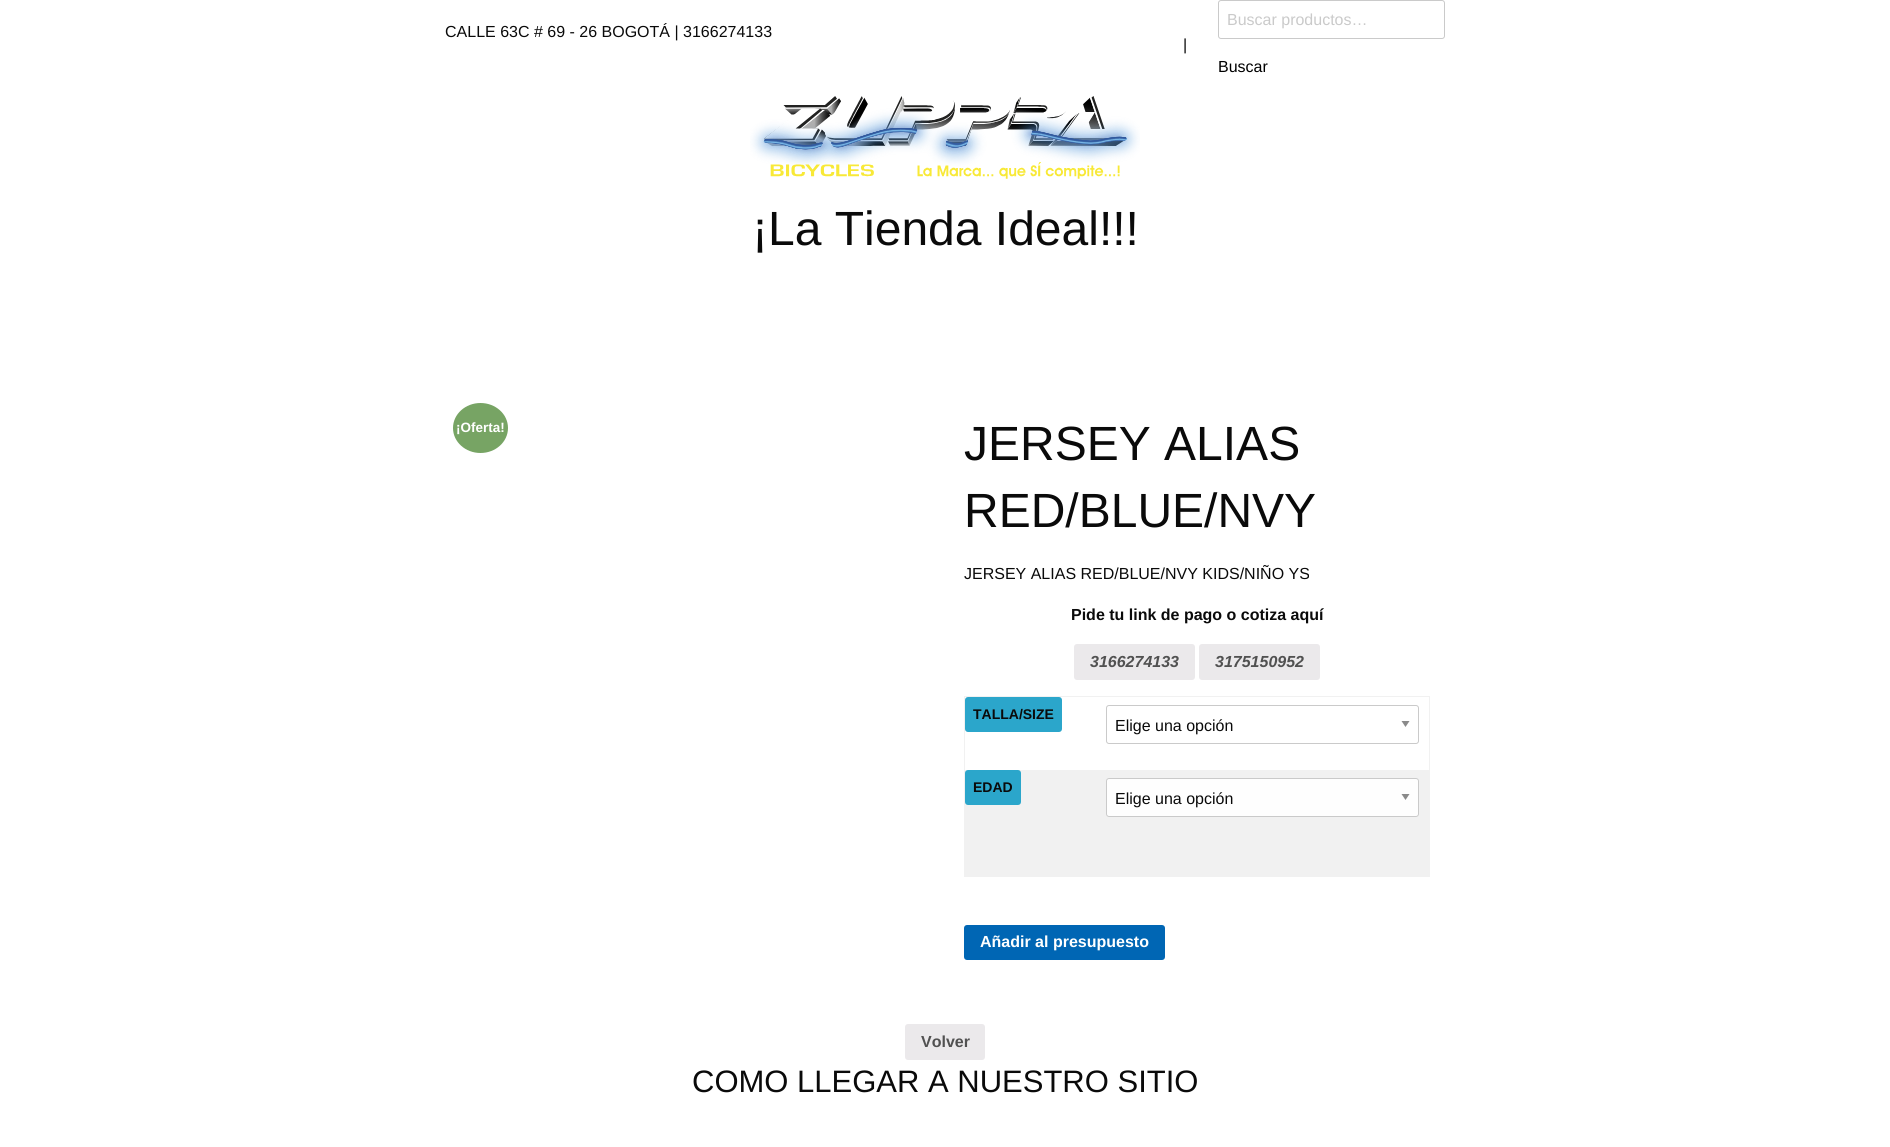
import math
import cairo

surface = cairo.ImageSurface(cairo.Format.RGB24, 1890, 1147)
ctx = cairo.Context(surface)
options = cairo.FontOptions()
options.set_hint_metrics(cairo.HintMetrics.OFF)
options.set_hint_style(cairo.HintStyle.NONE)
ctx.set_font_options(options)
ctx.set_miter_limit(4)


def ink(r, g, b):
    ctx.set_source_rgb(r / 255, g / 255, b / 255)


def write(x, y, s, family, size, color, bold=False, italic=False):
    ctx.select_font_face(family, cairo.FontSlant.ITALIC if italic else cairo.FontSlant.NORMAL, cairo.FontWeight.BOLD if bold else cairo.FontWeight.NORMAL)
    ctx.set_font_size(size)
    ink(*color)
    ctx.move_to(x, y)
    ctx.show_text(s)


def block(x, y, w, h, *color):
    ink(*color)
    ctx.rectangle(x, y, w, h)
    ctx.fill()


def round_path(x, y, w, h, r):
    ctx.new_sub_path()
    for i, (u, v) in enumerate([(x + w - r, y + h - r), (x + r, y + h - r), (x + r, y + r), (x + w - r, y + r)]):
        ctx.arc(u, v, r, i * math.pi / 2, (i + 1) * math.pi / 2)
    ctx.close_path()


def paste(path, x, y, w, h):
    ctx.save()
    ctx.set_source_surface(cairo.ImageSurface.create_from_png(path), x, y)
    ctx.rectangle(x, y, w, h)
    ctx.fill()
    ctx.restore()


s1 = dict(family="Liberation Sans", size=16, color=(10, 10, 10))
s2 = dict(family="Liberation Sans", size=16, color=(202, 202, 202))
s3 = dict(family="Liberation Sans", size=16, color=(0, 0, 0))
s4 = dict(family="Liberation Sans", size=48, color=(10, 10, 10))
s5 = dict(family="Liberation Sans", size=13.5, color=(255, 255, 255), bold=True)
s6 = dict(family="Liberation Sans", size=16, color=(10, 10, 10), bold=True)
s7 = dict(family="Liberation Sans", size=16, color=(81, 81, 81), bold=True, italic=True)
s8 = dict(family="Liberation Sans", size=14, color=(10, 10, 10), bold=True)
s9 = dict(family="Liberation Sans", size=16, color=(255, 255, 255), bold=True)
s10 = dict(family="Liberation Sans", size=16, color=(81, 81, 81), bold=True)
s11 = dict(family="Liberation Sans", size=31, color=(10, 10, 10))

ink(255, 255, 255)
ctx.paint()
write(445, 37, "CALLE 63C # 69 - 26 BOGOTÁ | 3166274133", **s1)
round_path(1218.5, 0.5, 226, 38, 2.5)
ink(202, 202, 202)
ctx.set_line_width(1)
ctx.stroke()
write(1227, 25, "Buscar productos…", **s2)
write(1218, 72, "Buscar", **s3)
write(1183, 50, "|", **s1)
paste("pic1.png", 750, 96, 390, 83)
write(752, 245, "¡La Tienda Ideal!!!", **s4)
ink(119, 164, 100)
ctx.new_path()
ctx.move_to(480.5, 403)
ctx.curve_to(495.5, 403, 508, 414, 508, 428)
ctx.curve_to(508, 442, 495.5, 453, 480.5, 453)
ctx.curve_to(465.5, 453, 453, 442, 453, 428)
ctx.curve_to(453, 414, 465.5, 403, 480.5, 403)
ctx.close_path()
ctx.fill()
write(456, 432, "¡Oferta!", **s5)
write(964, 460, "JERSEY ALIAS", **s4)
write(964, 527, "RED/BLUE/NVY", **s4)
write(964, 579, "JERSEY ALIAS RED/BLUE/NVY KIDS/NIÑO YS", **s1)
write(1071, 620, "Pide tu link de pago o cotiza aquí", **s6)
ink(235, 233, 235)
round_path(1074, 644, 121, 36, 3)
ctx.fill()
write(1090, 667, "3166274133", **s7)
ink(235, 233, 235)
round_path(1199, 644, 121, 36, 3)
ctx.fill()
write(1215, 667, "3175150952", **s7)
block(964, 696, 466, 1, 241, 241, 241)
block(1429, 696, 1, 181, 241, 241, 241)
block(964, 876, 466, 1, 241, 241, 241)
block(964, 696, 1, 181, 241, 241, 241)
ink(43, 166, 203)
round_path(965, 697, 97, 35, 3)
ctx.fill()
write(973, 719, "TALLA/SIZE", **s8)
ink(138, 138, 138)
ctx.new_path()
ctx.move_to(1401.5, 721)
ctx.line_to(1409.5, 721)
ctx.line_to(1405.5, 727)
ctx.close_path()
ctx.fill()
round_path(1106.5, 705.5, 312, 38, 2.5)
ink(202, 202, 202)
ctx.stroke()
write(1115, 731, "Elige una opción", **s1)
block(965, 770, 464, 106, 241, 241, 241)
ink(43, 166, 203)
round_path(965, 770, 56, 35, 3)
ctx.fill()
write(973, 792, "EDAD", **s8)
ink(254, 254, 254)
round_path(1106, 778, 313, 39, 3)
ctx.fill()
ink(138, 138, 138)
ctx.new_path()
ctx.move_to(1401.5, 794)
ctx.line_to(1409.5, 794)
ctx.line_to(1405.5, 800)
ctx.close_path()
ctx.fill()
round_path(1106.5, 778.5, 312, 38, 2.5)
ink(202, 202, 202)
ctx.stroke()
write(1115, 804, "Elige una opción", **s1)
ink(0, 102, 180)
round_path(964, 925, 201, 35, 3)
ctx.fill()
write(980, 947, "Añadir al presupuesto", **s9)
ink(235, 233, 235)
round_path(905, 1024, 80, 36, 3)
ctx.fill()
write(921, 1047, "Volver", **s10)
write(692, 1092, "COMO LLEGAR A NUESTRO SITIO", **s11)
surface.write_to_png("screenshot.png")
